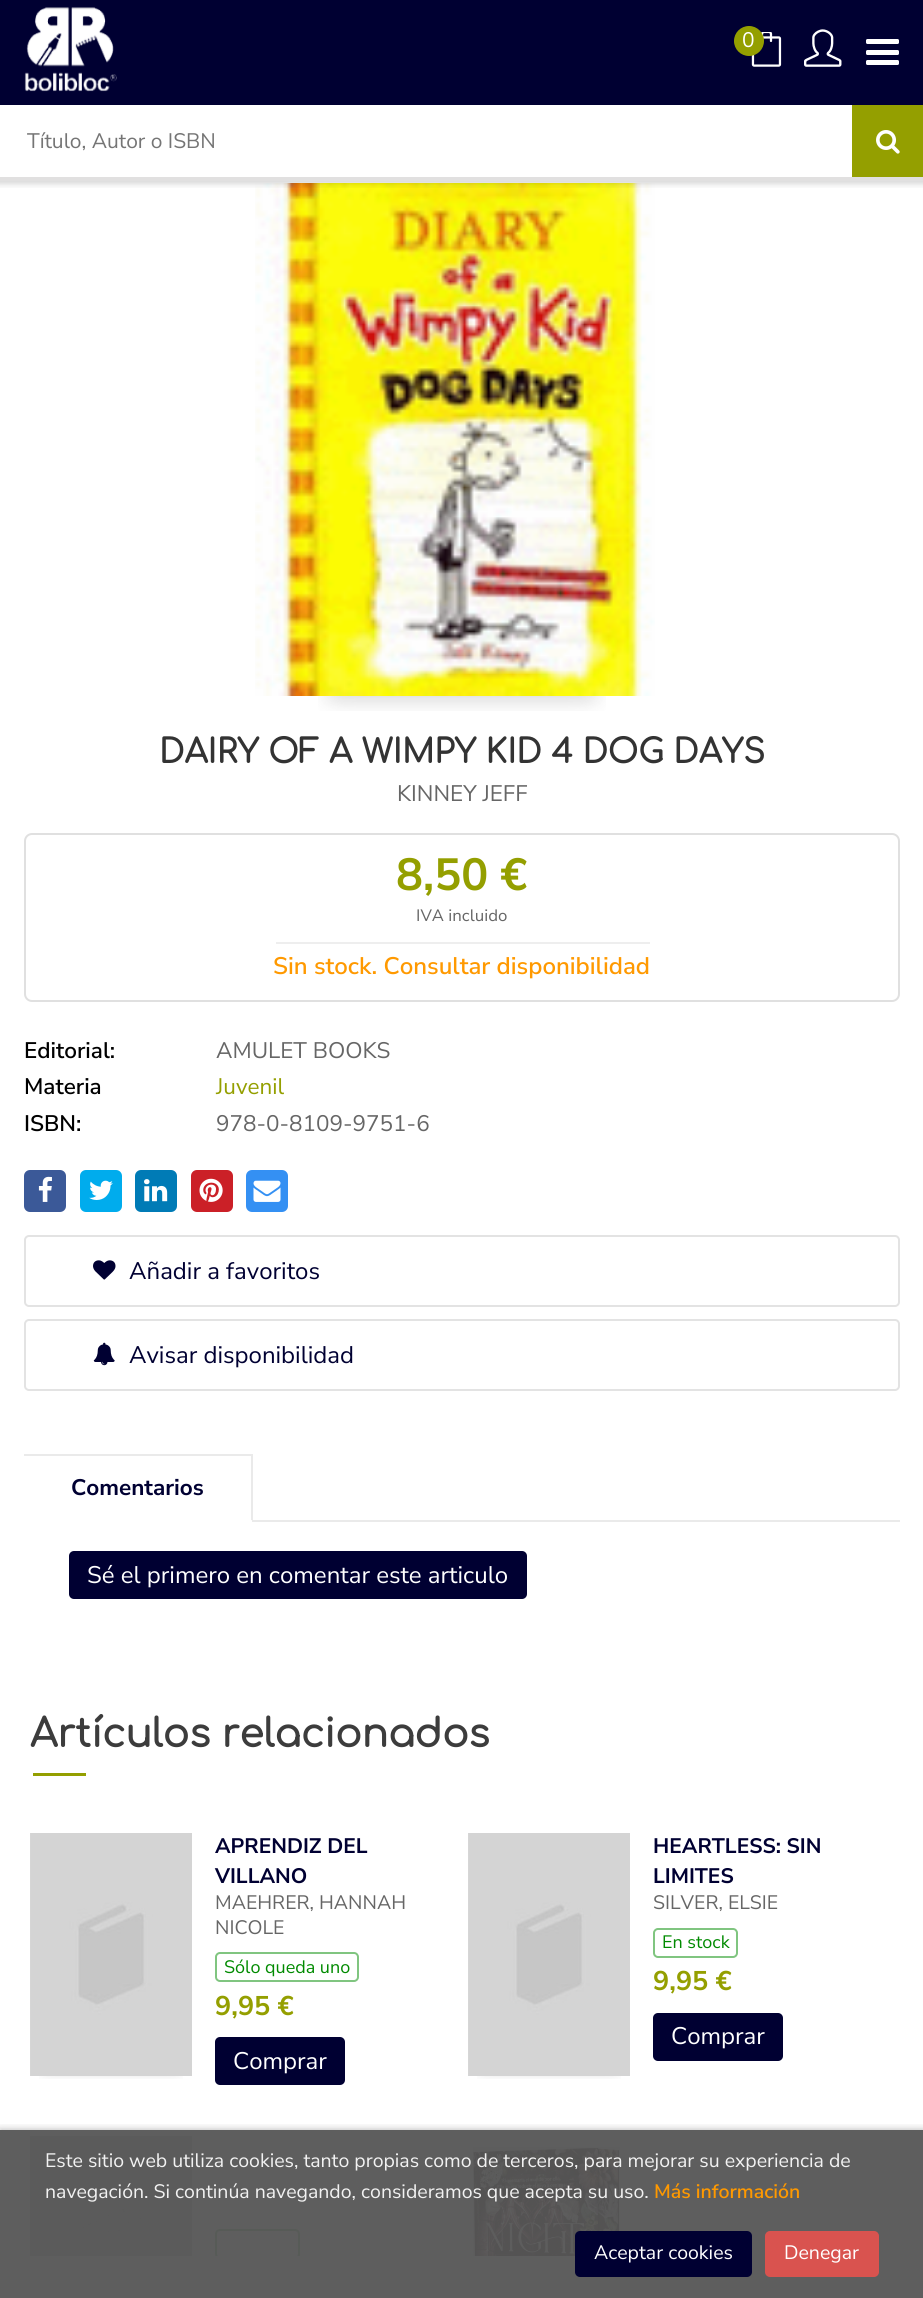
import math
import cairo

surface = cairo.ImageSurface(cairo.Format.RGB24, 923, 2298)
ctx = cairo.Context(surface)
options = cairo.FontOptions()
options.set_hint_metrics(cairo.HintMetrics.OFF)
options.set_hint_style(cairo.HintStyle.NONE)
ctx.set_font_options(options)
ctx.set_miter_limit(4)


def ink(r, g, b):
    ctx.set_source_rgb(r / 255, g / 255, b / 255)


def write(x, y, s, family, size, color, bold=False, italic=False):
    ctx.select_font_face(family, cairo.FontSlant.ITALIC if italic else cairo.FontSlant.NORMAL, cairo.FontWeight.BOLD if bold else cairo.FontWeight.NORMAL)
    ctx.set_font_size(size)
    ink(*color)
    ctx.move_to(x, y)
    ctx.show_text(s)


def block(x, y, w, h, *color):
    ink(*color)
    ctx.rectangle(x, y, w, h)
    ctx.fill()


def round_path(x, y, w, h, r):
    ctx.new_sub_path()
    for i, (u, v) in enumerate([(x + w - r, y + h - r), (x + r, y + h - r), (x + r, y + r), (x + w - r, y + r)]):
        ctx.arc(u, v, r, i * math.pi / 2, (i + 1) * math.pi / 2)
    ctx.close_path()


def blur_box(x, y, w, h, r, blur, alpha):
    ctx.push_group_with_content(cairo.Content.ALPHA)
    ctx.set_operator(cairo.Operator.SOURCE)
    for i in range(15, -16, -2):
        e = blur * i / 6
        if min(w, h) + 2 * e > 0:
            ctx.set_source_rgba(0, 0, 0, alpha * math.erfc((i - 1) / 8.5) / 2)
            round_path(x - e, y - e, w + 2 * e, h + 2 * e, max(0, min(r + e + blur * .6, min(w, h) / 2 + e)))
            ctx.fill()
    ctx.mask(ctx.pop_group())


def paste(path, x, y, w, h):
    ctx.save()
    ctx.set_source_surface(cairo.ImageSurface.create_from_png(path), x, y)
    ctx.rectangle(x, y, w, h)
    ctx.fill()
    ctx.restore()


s1 = dict(family="Nunito Sans", size=21, color=(255, 255, 255))
s2 = dict(family="Nunito Sans", size=21, color=(117, 117, 117))
s3 = dict(family="Comfortaa", size=33, color=(51, 51, 51), bold=True)
s4 = dict(family="Nunito Sans", size=22.5, color=(102, 102, 102))
s5 = dict(family="Nunito Sans", size=45, color=(148, 159, 0), bold=True)
s6 = dict(family="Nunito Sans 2", size=16.5, color=(102, 102, 102))
s7 = dict(family="Nunito Sans SemiBold", size=24, color=(255, 153, 0))
s8 = dict(family="Nunito Sans SemiBold", size=22.5, color=(0, 0, 0))
s9 = dict(family="Nunito Sans", size=22.5, color=(148, 159, 0))
s10 = dict(family="Nunito Sans", size=24, color=(0, 0, 50))
s11 = dict(family="Nunito Sans", size=22.5, color=(0, 0, 50), bold=True)
s12 = dict(family="Nunito Sans", size=24, color=(255, 255, 255))
s13 = dict(family="Comfortaa", size=39, color=(60, 60, 60), bold=True)
s14 = dict(family="Nunito Sans", size=21, color=(0, 0, 50), bold=True)
s15 = dict(family="Nunito Sans", size=19.5, color=(102, 102, 102))
s16 = dict(family="Nunito Sans", size=18, color=(0, 138, 0))
s17 = dict(family="Nunito Sans", size=27, color=(148, 159, 0), bold=True)
s18 = dict(family="Nunito Sans", size=19.5, color=(242, 242, 242))
s19 = dict(family="Nunito Sans SemiBold", size=19.5, color=(255, 153, 0))
s20 = dict(family="Nunito Sans", size=19.5, color=(255, 255, 255))

ink(255, 255, 255)
ctx.paint()
block(0, 2130, 923, 126, 94, 94, 94)
paste("pic5.png", 255, 183, 400, 513)
ctx.save()
ctx.rectangle(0, 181, 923, 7)
ctx.clip()
ink(0, 0, 0)
blur_box(-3, -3, 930, 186, 0, 4, 0.2)
ctx.restore()
block(0, 0, 923, 105, 0, 0, 50)
paste("pic1.png", 751, 32, 31, 35)
ink(148, 159, 0)
ctx.arc(749, 41, 15, 0, 2 * math.pi)
ctx.fill()
write(742, 47, "0", **s1)
paste("pic2.png", 804, 29, 38, 38)
round_path(866, 39, 33, 5, 1.5)
ctx.fill()
round_path(866, 50, 33, 5, 1.5)
ctx.fill()
round_path(866, 60, 33, 5, 1.5)
ctx.fill()
paste("pic3.png", 24, 7, 93, 85)
write(27, 148, "Título, Autor o ISBN", **s2)
block(852, 105, 71, 72, 148, 159, 0)
paste("pic4.png", 876, 130, 24, 24)
block(0, 177, 923, 4, 225, 224, 224)
paste("pic6.png", 318, 696, 288, 15)
write(159, 763, "DAIRY OF A WIMPY KID 4 DOG DAYS", **s3)
write(397, 801, "KINNEY JEFF", **s4)
round_path(25, 834, 874, 167, 7)
ink(224, 224, 224)
ctx.stroke()
write(396, 890, "8,50 €", **s5)
write(416, 921, "IVA incluido", **s6)
block(276, 942, 374, 2, 238, 238, 238)
write(273, 974, "Sin stock. Consultar disponibilidad", **s7)
write(24, 1058, "Editorial:", **s8)
write(216, 1058, "AMULET BOOKS", **s4)
write(24, 1094, "Materia", **s8)
write(216, 1094, "Juvenil", **s9)
write(24, 1131, "ISBN:", **s8)
write(216, 1131, "978-0-8109-9751-6", **s4)
ink(59, 89, 152)
round_path(24, 1170, 42, 42, 6)
ctx.fill()
paste("pic7.png", 38, 1176, 14, 26)
ink(0, 172, 237)
round_path(80, 1170, 42, 42, 6)
ctx.fill()
paste("pic8.png", 89, 1180, 24, 20)
ink(0, 123, 182)
round_path(135, 1170, 42, 42, 6)
ctx.fill()
paste("pic9.png", 144, 1179, 24, 23)
ink(203, 32, 39)
round_path(191, 1170, 42, 42, 6)
ctx.fill()
paste("pic10.png", 199, 1178, 24, 24)
ink(52, 144, 243)
round_path(246, 1170, 42, 42, 6)
ctx.fill()
paste("pic11.png", 253, 1180, 28, 22)
round_path(25, 1236, 874, 70, 4)
ink(227, 227, 227)
ctx.stroke()
paste("pic12.png", 93, 1260, 23, 20)
write(129, 1279, "Añadir a favoritos", **s10)
round_path(25, 1320, 874, 70, 4)
ink(227, 227, 227)
ctx.stroke()
paste("pic13.png", 93, 1342, 22, 24)
write(129, 1363, "Avisar disponibilidad", **s10)
round_path(216, 2230, 83, 28, 4)
ink(87, 91, 87)
ctx.stroke()
block(0, 2256, 923, 42, 94, 94, 94)
block(252, 1520, 648, 2, 234, 234, 234)
block(24, 1454, 228, 2, 234, 234, 234)
block(251, 1454, 2, 67, 234, 234, 234)
block(251, 1520, 1, 1, 253, 253, 253)
write(71, 1495, "Comentarios", **s11)
round_path(69, 1551, 458, 48, 5)
ctx.fill()
write(87, 1583, "Sé el primero en comentar este articulo", **s12)
write(30, 1747, "Artículos relacionados", **s13)
block(33, 1773, 53, 3, 148, 159, 0)
paste("pic14.png", 30, 1833, 162, 243)
paste("pic15.png", 39, 2076, 144, 3)
write(215, 1853, "APRENDIZ DEL", **s14)
write(215, 1883, "VILLANO", **s14)
write(215, 1909, "MAEHRER, HANNAH", **s15)
write(215, 1934, "NICOLE", **s15)
round_path(216, 1953, 142, 28, 4)
ink(128, 197, 128)
ctx.stroke()
write(224, 1973, "Sólo queda uno", **s16)
write(215, 2015, "9,95 €", **s17)
ink(0, 0, 50)
round_path(215, 2037, 130, 48, 5)
ctx.fill()
write(233, 2069, "Comprar", **s12)
paste("pic14.png", 468, 1833, 162, 243)
paste("pic15.png", 477, 2076, 144, 3)
write(653, 1853, "HEARTLESS: SIN", **s14)
write(653, 1883, "LIMITES", **s14)
write(653, 1909, "SILVER, ELSIE", **s15)
round_path(654, 1929, 83, 28, 4)
ink(128, 197, 128)
ctx.stroke()
write(662, 1948, "En stock", **s16)
write(653, 1990, "9,95 €", **s17)
ink(0, 0, 50)
round_path(653, 2013, 130, 48, 5)
ctx.fill()
write(671, 2044, "Comprar", **s12)
paste("pic16.png", 30, 2136, 162, 120)
paste("pic17.png", 473, 2147, 147, 109)
ctx.save()
ctx.rectangle(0, 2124, 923, 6)
ctx.clip()
ink(0, 0, 0)
blur_box(0, 2130, 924, 168, 0, 4, 0.3)
ctx.restore()
write(45, 2167, "Este sitio web utiliza cookies, tanto propias como de terceros, para mejorar su experiencia de", **s18)
write(45, 2198, "navegación. Si continúa navegando, consideramos que acepta su uso.", **s18)
write(654, 2198, "Más información", **s19)
ink(0, 0, 50)
round_path(575, 2231, 177, 46, 5)
ctx.fill()
write(594, 2259, "Aceptar cookies", **s20)
ink(217, 83, 79)
round_path(766, 2232, 112, 44, 4)
ctx.fill_preserve()
ctx.stroke()
write(784, 2259, "Denegar", **s20)
surface.write_to_png("screenshot.png")
